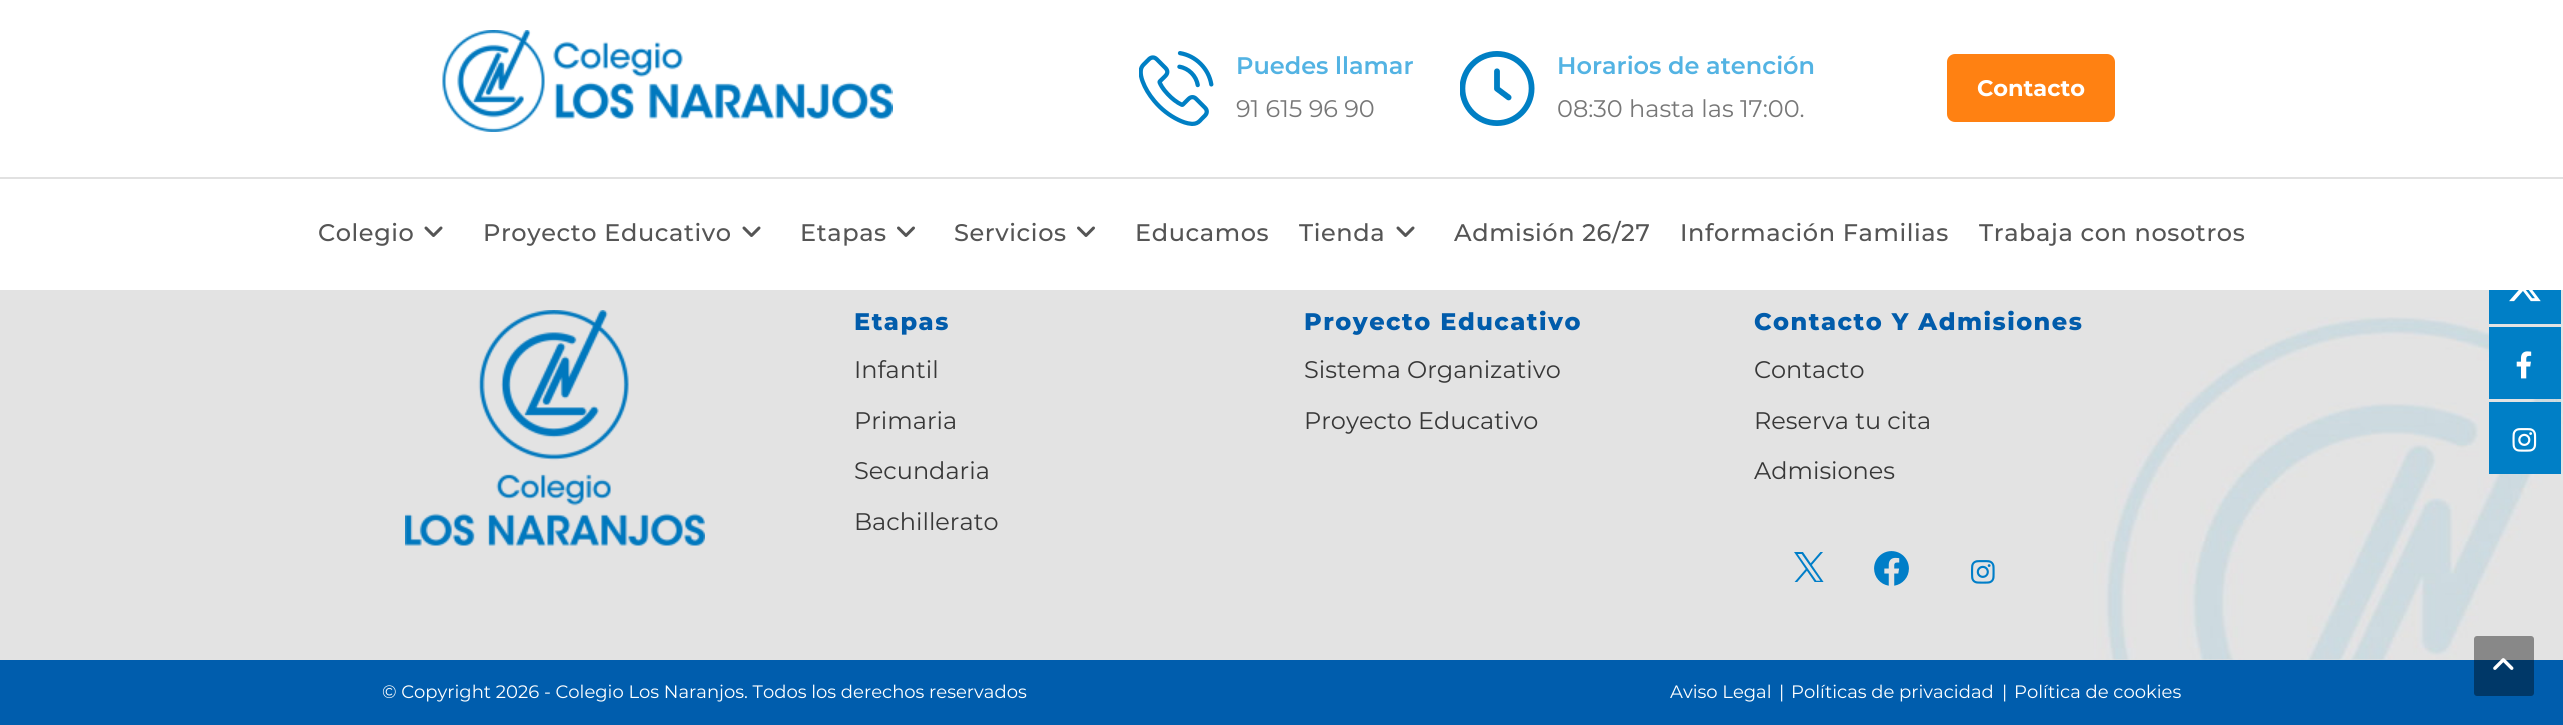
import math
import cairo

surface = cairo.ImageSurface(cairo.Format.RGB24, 2563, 725)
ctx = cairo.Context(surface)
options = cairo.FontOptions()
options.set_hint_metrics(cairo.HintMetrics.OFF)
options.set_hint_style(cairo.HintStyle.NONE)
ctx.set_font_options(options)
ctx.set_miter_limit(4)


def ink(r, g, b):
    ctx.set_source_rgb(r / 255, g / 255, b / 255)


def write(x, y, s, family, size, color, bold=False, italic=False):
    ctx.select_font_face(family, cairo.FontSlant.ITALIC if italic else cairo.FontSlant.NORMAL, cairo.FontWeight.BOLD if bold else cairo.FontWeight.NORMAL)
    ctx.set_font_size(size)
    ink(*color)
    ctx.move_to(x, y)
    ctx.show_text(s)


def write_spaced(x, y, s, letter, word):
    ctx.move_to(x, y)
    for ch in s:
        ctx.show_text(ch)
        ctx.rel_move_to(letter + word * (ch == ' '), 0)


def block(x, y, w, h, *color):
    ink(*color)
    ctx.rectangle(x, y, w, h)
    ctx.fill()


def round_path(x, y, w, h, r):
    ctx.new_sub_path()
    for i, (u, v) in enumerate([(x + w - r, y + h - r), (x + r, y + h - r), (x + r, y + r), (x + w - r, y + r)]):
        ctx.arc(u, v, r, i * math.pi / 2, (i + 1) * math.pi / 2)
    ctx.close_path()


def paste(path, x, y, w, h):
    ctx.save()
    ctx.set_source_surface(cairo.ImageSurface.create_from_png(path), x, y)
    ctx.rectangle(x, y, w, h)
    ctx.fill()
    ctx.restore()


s1 = dict(family="Montserrat SemiBold", size=24, color=(83, 179, 227))
s2 = dict(family="Montserrat", size=24, color=(119, 119, 119))
s3 = dict(family="Montserrat", size=22.5, color=(255, 255, 255), bold=True)
s4 = dict(family="Montserrat", size=24, color=(56, 56, 56))
s5 = dict(family="Montserrat", size=18, color=(255, 255, 255))

ink(227, 227, 227)
ctx.paint()
block(0, 0, 2563, 290, 255, 255, 255)
block(0, 177, 2563, 2, 225, 225, 225)
paste("pic1.png", 442, 30, 451, 102)
paste("pic2.png", 1139, 51, 75, 75)
write(1236, 74, "Puedes llamar", **s1)
write(1236, 117, "91 615 96 90", **s2)
paste("pic3.png", 1460, 51, 75, 75)
write(1557, 74, "Horarios de atención", **s1)
write(1557, 117, "08:30 hasta las 17:00.", **s2)
ink(255, 129, 18)
round_path(1947, 54, 168, 68, 8)
ctx.fill()
write(1977, 96, "Contacto", **s3)
ctx.select_font_face("Montserrat Medium")
ctx.set_font_size(24)
ink(85, 85, 85)
write_spaced(318, 241, "Colegio", 0.6, 0)
paste("pic4.png", 424, 226, 19, 11)
write_spaced(483, 241, "Proyecto Educativo", 0.6, 0)
paste("pic4.png", 742, 226, 19, 11)
write_spaced(800, 241, "Etapas", 0.6, 0)
paste("pic5.png", 897, 226, 18, 11)
write_spaced(954, 241, "Servicios", 0.6, 0)
paste("pic5.png", 1077, 226, 18, 11)
write_spaced(1135, 241, "Educamos", 0.6, 0)
write_spaced(1299, 241, "Tienda", 0.6, 0)
paste("pic4.png", 1396, 226, 19, 11)
write_spaced(1454, 241, "Admisión 26/27", 0.6, 0)
write_spaced(1680, 241, "Información Familias", 0.6, 0)
write_spaced(1979, 241, "Trabaja con nosotros", 0.6, 0)
paste("pic6.png", 0, 290, 2563, 370)
paste("pic7.png", 405, 310, 300, 236)
ctx.select_font_face("Montserrat ExtraBold")
ink(1, 92, 171)
write_spaced(854, 330, "Etapas", 1.5, 0)
write(854, 378, "Infantil", **s4)
write(854, 429, "Primaria", **s4)
write(854, 479, "Secundaria", **s4)
write(854, 530, "Bachillerato", **s4)
ctx.select_font_face("Montserrat ExtraBold")
ink(1, 92, 171)
write_spaced(1304, 330, "Proyecto Educativo", 1.5, 0)
write(1304, 378, "Sistema Organizativo", **s4)
write(1304, 429, "Proyecto Educativo", **s4)
ctx.select_font_face("Montserrat ExtraBold")
ink(1, 92, 171)
write_spaced(1754, 330, "Contacto Y Admisiones", 1.5, 0)
write(1754, 378, "Contacto", **s4)
write(1754, 429, "Reserva tu cita", **s4)
write(1754, 479, "Admisiones", **s4)
paste("pic8.png", 1794, 552, 30, 30)
paste("pic9.png", 1874, 551, 35, 35)
paste("pic10.png", 1971, 560, 24, 24)
block(0, 660, 2563, 65, 0, 93, 173)
write(382, 698, "© Copyright 2026 - Colegio Los Naranjos. Todos los derechos reservados", **s5)
write(1670, 698, "Aviso Legal", **s5)
write(1779, 698, "|", **s5)
write(1791, 698, "Políticas de privacidad", **s5)
write(2002, 698, "|", **s5)
write(2014, 698, "Política de cookies", **s5)
block(2489, 290, 72, 34, 0, 127, 198)
paste("pic11.png", 2509, 290, 32, 12)
block(2489, 327, 72, 72, 0, 127, 198)
paste("pic12.png", 2516, 351, 16, 28)
block(2489, 402, 72, 72, 0, 127, 198)
paste("pic13.png", 2512, 428, 25, 24)
ctx.set_source_rgba(0, 0, 0, 0.4)
round_path(2474, 636, 60, 60, 3)
ctx.fill()
paste("pic14.png", 2493, 658, 21, 12)
surface.write_to_png("screenshot.png")
